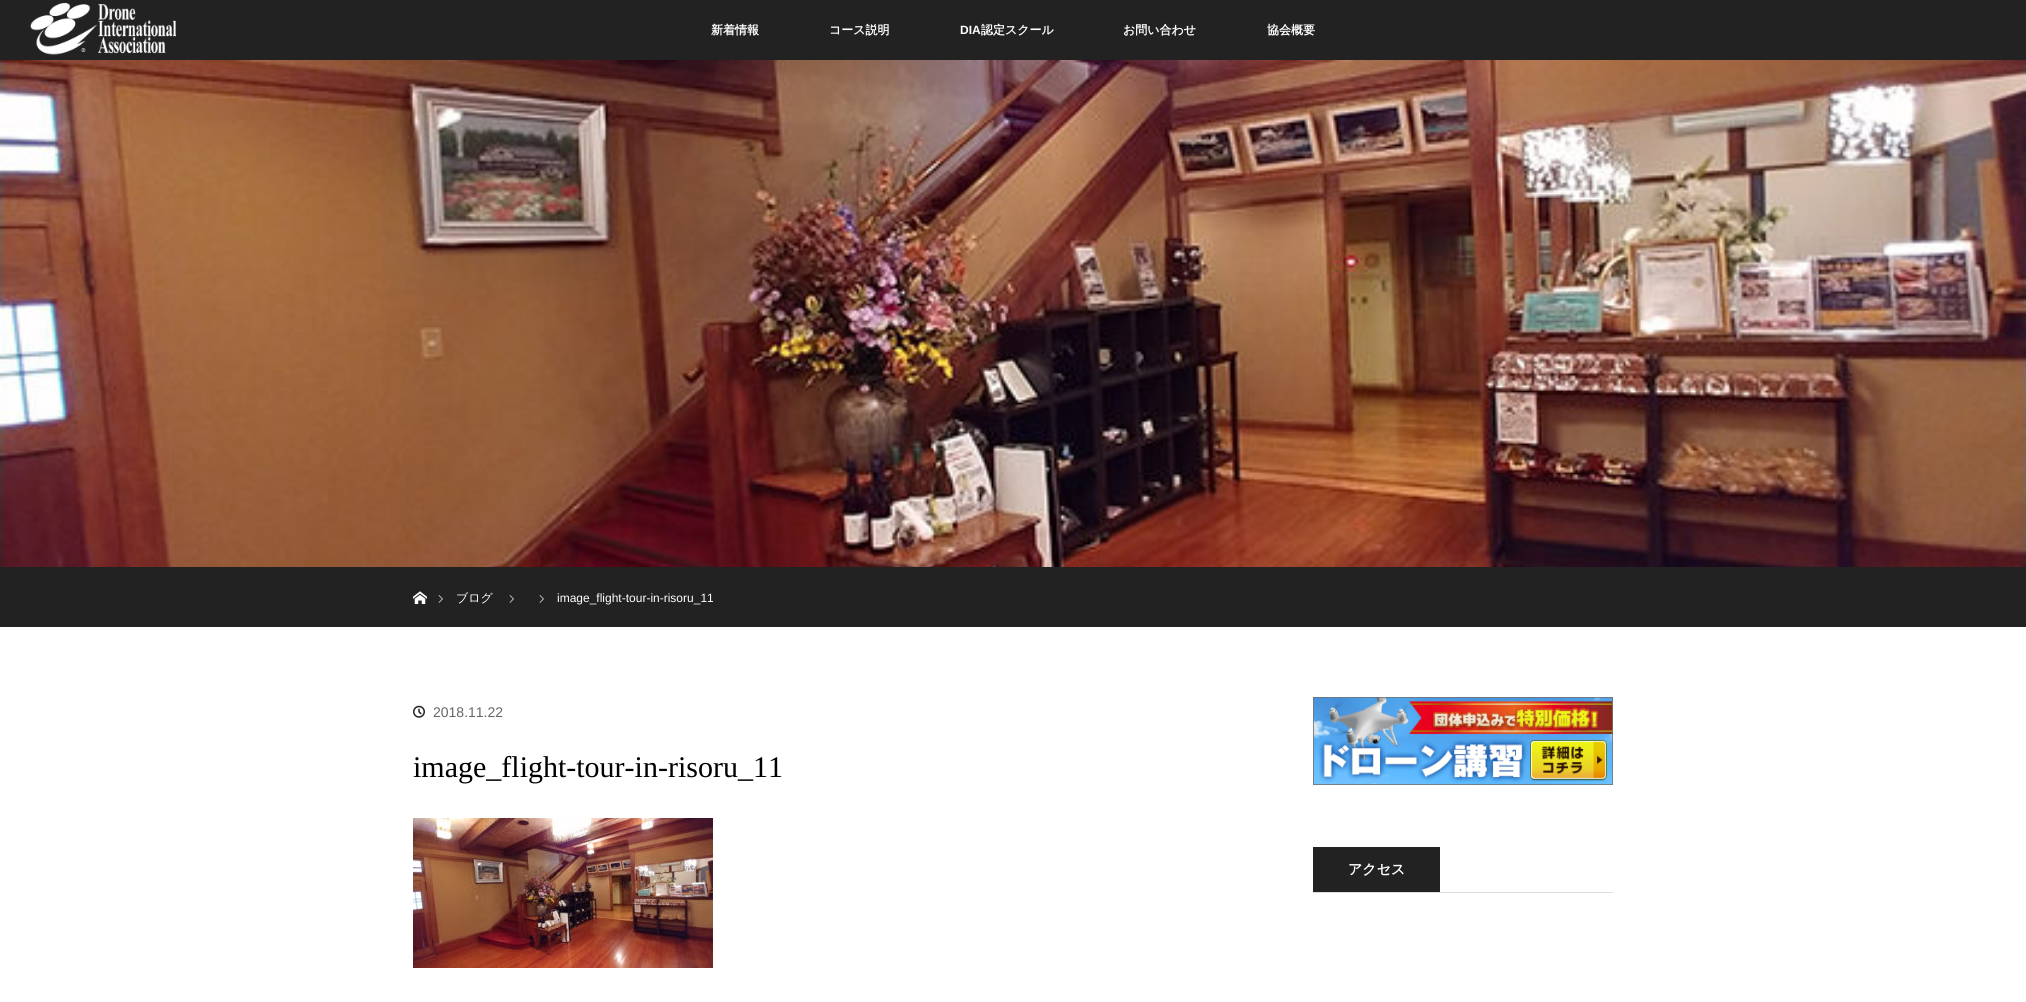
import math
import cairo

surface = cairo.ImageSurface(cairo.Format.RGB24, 2026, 1002)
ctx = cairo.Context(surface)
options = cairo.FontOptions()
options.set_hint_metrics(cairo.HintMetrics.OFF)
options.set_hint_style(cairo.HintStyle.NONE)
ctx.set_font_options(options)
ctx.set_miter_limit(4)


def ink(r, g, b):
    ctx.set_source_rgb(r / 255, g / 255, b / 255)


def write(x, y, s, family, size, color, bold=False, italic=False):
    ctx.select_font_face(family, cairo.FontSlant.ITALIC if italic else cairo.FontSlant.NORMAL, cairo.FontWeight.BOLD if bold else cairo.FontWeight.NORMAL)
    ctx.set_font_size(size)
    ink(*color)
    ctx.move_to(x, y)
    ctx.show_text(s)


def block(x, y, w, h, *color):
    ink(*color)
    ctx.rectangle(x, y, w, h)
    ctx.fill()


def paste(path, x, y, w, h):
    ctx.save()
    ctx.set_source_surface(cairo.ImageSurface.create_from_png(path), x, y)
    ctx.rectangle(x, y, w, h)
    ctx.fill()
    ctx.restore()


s1 = dict(family="WenQuanYi Zen Hei", size=12, color=(255, 255, 255), bold=True)
s2 = dict(family="Liberation Sans", size=12, color=(255, 255, 255), bold=True)
s3 = dict(family="WenQuanYi Zen Hei Medium", size=12, color=(255, 255, 255))
s4 = dict(family="Liberation Sans", size=12, color=(255, 255, 255))
s5 = dict(family="Liberation Sans", size=14, color=(102, 102, 102))
s6 = dict(family="Liberation Serif", size=30, color=(0, 0, 0))
s7 = dict(family="WenQuanYi Zen Hei", size=14, color=(255, 255, 255), bold=True)

ink(34, 34, 34)
ctx.paint()
paste("pic1.png", 30, 2, 146, 53)
write(711, 34, "新着情報", **s1)
write(829, 34, "コース説明", **s1)
write(960, 34, "DIA", **s2)
write(981, 34, "認定スクール", **s1)
write(1123, 34, "お問い合わせ", **s1)
write(1267, 34, "協会概要", **s1)
block(0, 627, 2026, 375, 255, 255, 255)
paste("pic2.png", 0, 60, 2026, 507)
paste("pic3.png", 413, 591, 14, 13)
paste("pic4.png", 438, 595, 5, 8)
write(456, 602, "ブログ", **s3)
paste("pic4.png", 509, 595, 5, 8)
paste("pic4.png", 539, 595, 5, 8)
write(557, 602, "image_flight-tour-in-risoru_11", **s4)
paste("pic5.png", 413, 705, 12, 13)
write(433, 717, "2018.11.22", **s5)
write(413, 777, "image_flight-tour-in-risoru_11", **s6)
paste("pic6.png", 413, 818, 300, 150)
paste("pic7.png", 1313, 697, 300, 88)
block(1313, 892, 300, 1, 221, 221, 221)
block(1313, 847, 127, 45, 34, 34, 34)
write(1348, 874, "アクセス", **s7)
surface.write_to_png("screenshot.png")
